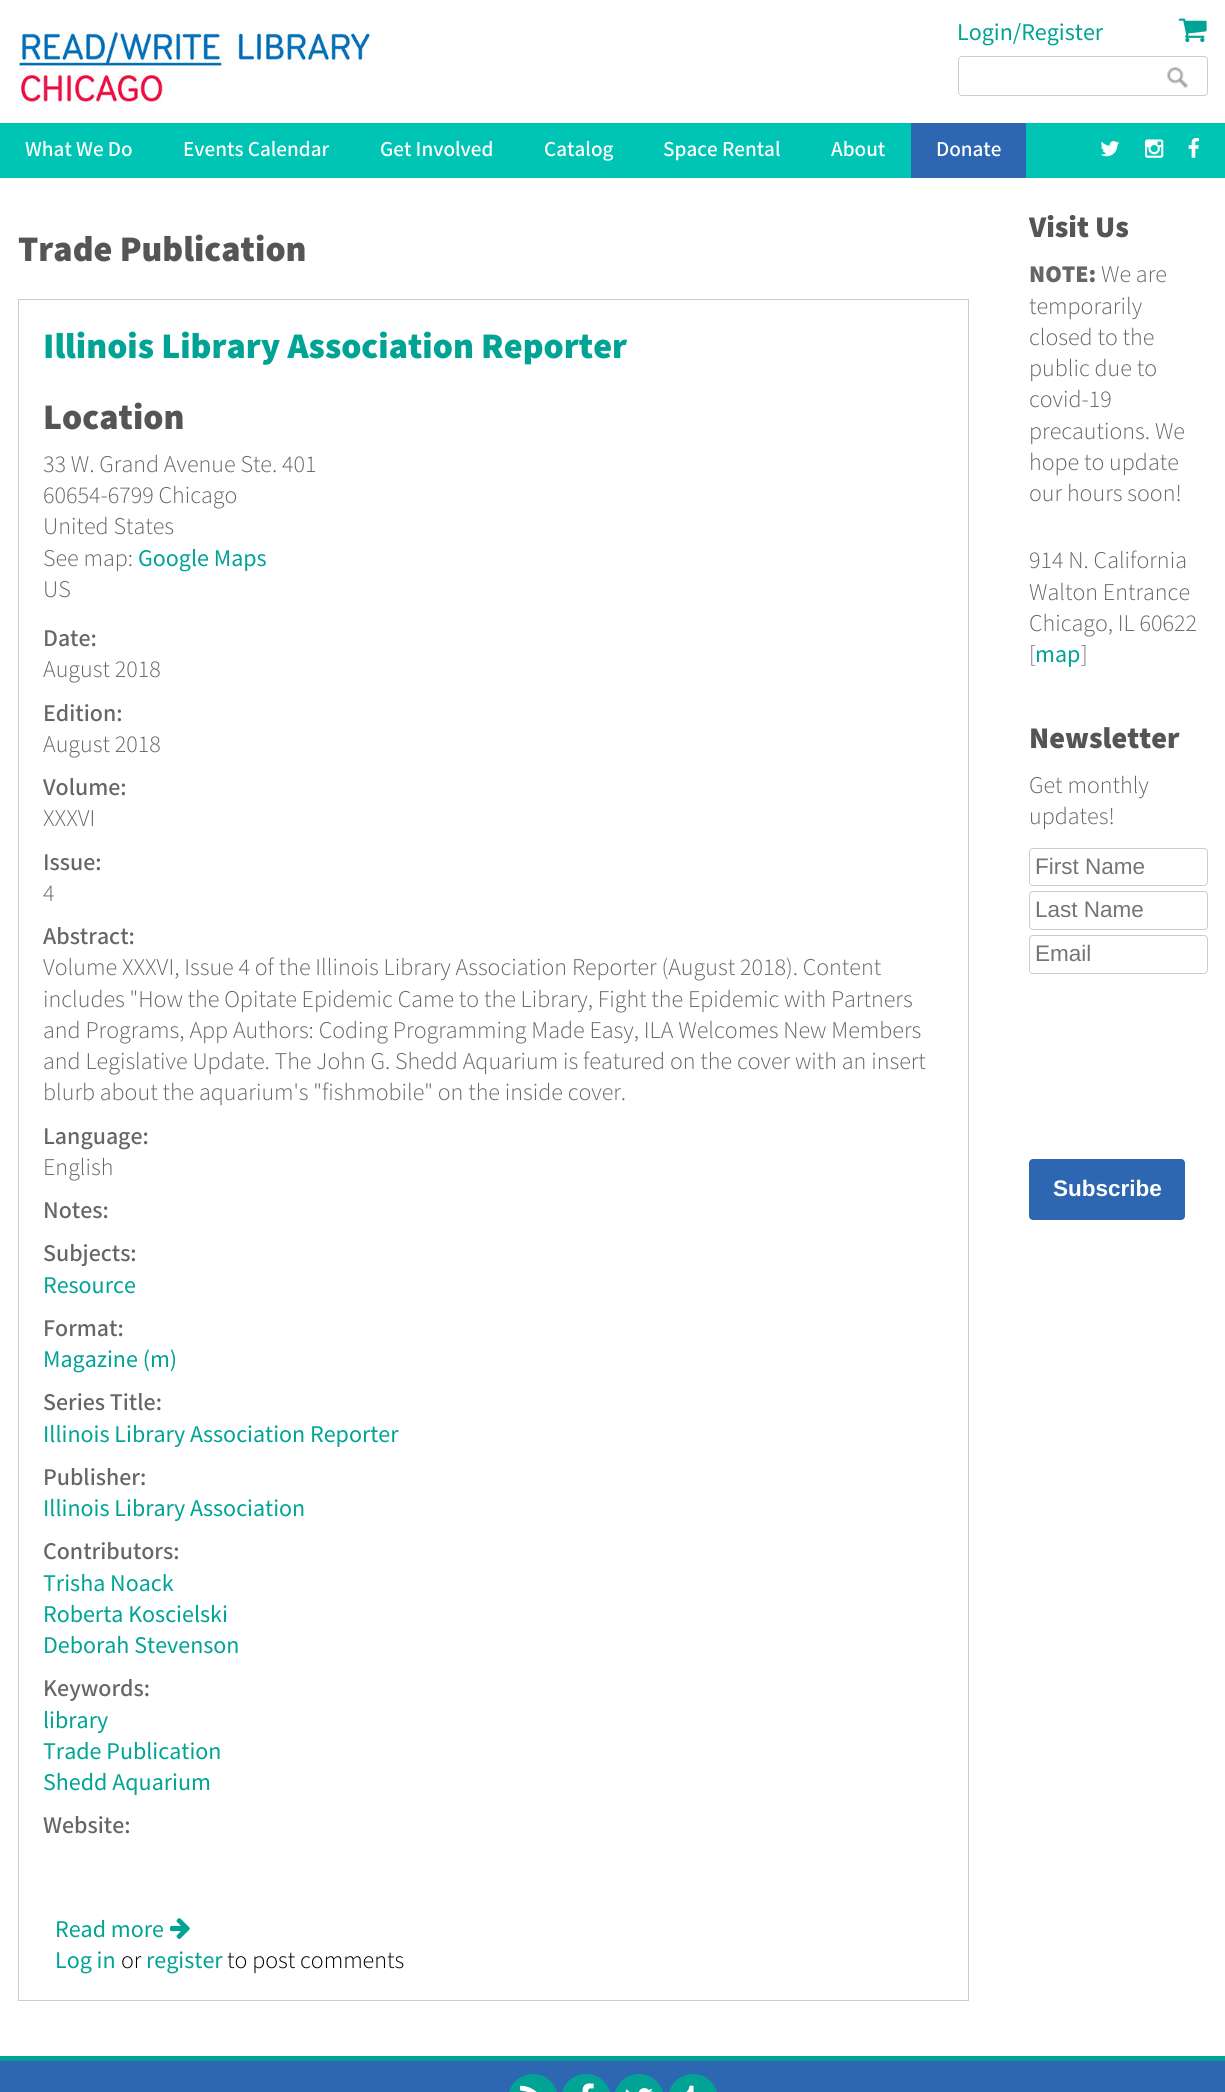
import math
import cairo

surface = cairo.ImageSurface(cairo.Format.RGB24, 1225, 2092)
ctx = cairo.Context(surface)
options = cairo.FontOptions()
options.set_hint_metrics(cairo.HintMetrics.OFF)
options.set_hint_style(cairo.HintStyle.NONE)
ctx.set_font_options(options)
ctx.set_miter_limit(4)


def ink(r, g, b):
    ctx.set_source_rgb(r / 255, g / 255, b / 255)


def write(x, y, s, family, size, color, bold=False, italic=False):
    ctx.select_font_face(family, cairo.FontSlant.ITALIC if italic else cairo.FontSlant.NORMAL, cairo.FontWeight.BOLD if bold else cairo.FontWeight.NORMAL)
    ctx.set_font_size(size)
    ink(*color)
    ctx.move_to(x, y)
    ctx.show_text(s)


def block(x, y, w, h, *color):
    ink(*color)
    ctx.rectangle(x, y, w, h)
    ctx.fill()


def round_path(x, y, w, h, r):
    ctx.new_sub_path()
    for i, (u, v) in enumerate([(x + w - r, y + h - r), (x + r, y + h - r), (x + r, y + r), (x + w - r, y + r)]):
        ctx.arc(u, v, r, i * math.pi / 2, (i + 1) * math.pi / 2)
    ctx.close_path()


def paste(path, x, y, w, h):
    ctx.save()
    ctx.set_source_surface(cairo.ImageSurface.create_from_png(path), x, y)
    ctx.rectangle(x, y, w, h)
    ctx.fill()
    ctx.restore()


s1 = dict(family="Mada", size=24, color=(1, 163, 149))
s2 = dict(family="Mada Medium", size=21.25, color=(255, 255, 255))
s3 = dict(family="Mada Black", size=36, color=(85, 85, 85))
s4 = dict(family="Mada Black", size=36, color=(1, 163, 149))
s5 = dict(family="Mada Light", size=24, color=(102, 102, 102))
s6 = dict(family="Mada Medium", size=24, color=(102, 102, 102))
s7 = dict(family="Mada Light", size=24, color=(0, 0, 0))
s8 = dict(family="Mada Black", size=30, color=(85, 85, 85))
s9 = dict(family="Mada Black", size=24, color=(102, 102, 102))
s10 = dict(family="Liberation Sans", size=22.5, color=(117, 117, 117))
s11 = dict(family="Liberation Sans", size=22.5, color=(255, 255, 255), bold=True)

ink(255, 255, 255)
ctx.paint()
paste("pic1.png", 19, 31, 353, 72)
write(957, 40, "Login/Register", **s1)
paste("pic2.png", 1178, 18, 29, 25)
round_path(958.5, 56.5, 249, 39, 3.5)
ink(204, 204, 204)
ctx.set_line_width(1)
ctx.stroke()
paste("pic3.png", 1167, 67, 21, 21)
block(0, 123, 1225, 55, 0, 197, 180)
write(25, 156, "What We Do", **s2)
write(183, 156, "Events Calendar", **s2)
write(380, 156, "Get Involved", **s2)
write(544, 156, "Catalog", **s2)
write(663, 156, "Space Rental", **s2)
write(831, 156, "About", **s2)
block(911, 123, 115, 55, 46, 103, 177)
write(936, 156, "Donate", **s2)
paste("pic4.png", 1100, 141, 20, 16)
paste("pic5.png", 1145, 139, 19, 19)
paste("pic6.png", 1188, 138, 11, 20)
write(18, 261, "Trade Publication", **s3)
ctx.rectangle(18.5, 299.5, 950, 1701)
ink(204, 204, 204)
ctx.stroke()
write(43, 358, "Illinois Library Association Reporter", **s4)
write(43, 429, "Location", **s3)
write(43, 472, "33 W. Grand Avenue Ste. 401", **s5)
write(43, 503, "60654-6799 Chicago", **s5)
write(43, 534, "United States", **s5)
write(43, 566, "See map:", **s5)
write(138, 566, "Google Maps", **s1)
write(43, 597, "US", **s5)
write(43, 646, "Date:", **s6)
write(43, 677, "August 2018", **s5)
write(43, 721, "Edition:", **s6)
write(43, 752, "August 2018", **s5)
write(43, 795, "Volume:", **s6)
write(43, 826, "XXXVI", **s5)
write(43, 870, "Issue:", **s6)
write(43, 901, "4", **s5)
write(43, 944, "Abstract:", **s6)
write(43, 975, "Volume XXXVI, Issue 4 of the Illinois Library Association Reporter (August 2018). Content", **s5)
write(43, 1007, "includes \"How the Opitate Epidemic Came to the Library, Fight the Epidemic with Partners", **s5)
write(43, 1038, "and Programs, App Authors: Coding Programming Made Easy, ILA Welcomes New Members", **s5)
write(43, 1069, "and Legislative Update. The John G. Shedd Aquarium is featured on the cover with an insert", **s5)
write(43, 1100, "blurb about the aquarium's \"fishmobile\" on the inside cover.", **s5)
write(43, 1144, "Language:", **s6)
write(43, 1175, "English", **s5)
write(43, 1218, "Notes:", **s6)
write(43, 1261, "Subjects:", **s6)
write(43, 1293, "Resource", **s1)
write(43, 1336, "Format:", **s6)
write(43, 1367, "Magazine (m)", **s1)
write(43, 1410, "Series Title:", **s6)
write(43, 1442, "Illinois Library Association Reporter", **s1)
write(43, 1485, "Publisher:", **s6)
write(43, 1516, "Illinois Library Association", **s1)
write(43, 1559, "Contributors:", **s6)
write(43, 1591, "Trisha Noack", **s1)
write(43, 1622, "Roberta Koscielski", **s1)
write(43, 1653, "Deborah Stevenson", **s1)
write(43, 1696, "Keywords:", **s6)
write(43, 1728, "library", **s1)
write(43, 1759, "Trade Publication", **s1)
write(43, 1790, "Shedd Aquarium", **s1)
write(43, 1833, "Website:", **s6)
write(55, 1937, "Read more", **s1)
paste("pic7.png", 170, 1918, 20, 21)
write(55, 1968, "Log in", **s1)
write(121, 1968, "or", **s7)
write(146, 1968, "register", **s1)
write(227, 1968, "to post comments", **s7)
ctx.save()
ctx.rectangle(1029, 196, 179, 64)
ctx.clip()
write(1029, 237, "Visit Us", **s8)
ctx.restore()
write(1029, 282, "NOTE:", **s9)
write(1101, 282, "We are", **s5)
write(1029, 314, "temporarily", **s5)
write(1029, 345, "closed to the", **s5)
write(1029, 376, "public due to", **s5)
write(1029, 407, "covid-19", **s5)
write(1029, 439, "precautions. We", **s5)
write(1029, 470, "hope to update", **s5)
write(1029, 501, "our hours soon!", **s5)
write(1029, 568, "914 N. California", **s5)
write(1029, 600, "Walton Entrance", **s5)
write(1029, 631, "Chicago, IL 60622", **s5)
write(1029, 662, "[", **s5)
write(1035, 662, "map", **s1)
write(1081, 662, "]", **s5)
write(1029, 748, "Newsletter", **s8)
write(1029, 793, "Get monthly", **s5)
write(1029, 824, "updates!", **s5)
round_path(1029.5, 848.5, 178, 37, 3.5)
ink(204, 204, 204)
ctx.stroke()
write(1035, 874, "First Name", **s10)
round_path(1029.5, 891.5, 178, 38, 3.5)
ink(204, 204, 204)
ctx.stroke()
write(1035, 917, "Last Name", **s10)
round_path(1029.5, 935.5, 178, 38, 3.5)
ink(204, 204, 204)
ctx.stroke()
write(1035, 961, "Email", **s10)
ink(46, 103, 177)
round_path(1029, 1159, 156, 61, 4)
ctx.fill()
write(1053, 1196, "Subscribe", **s11)
block(0, 2061, 1225, 31, 46, 103, 177)
block(0, 2056, 1225, 5, 1, 163, 149)
round_path(508, 2074, 50, 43, 25)
ctx.fill()
paste("pic8.png", 520, 2085, 17, 7)
round_path(561, 2074, 50, 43, 25)
ctx.fill()
paste("pic9.png", 582, 2083, 12, 9)
round_path(614, 2074, 50, 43, 25)
ctx.fill()
paste("pic10.png", 625, 2088, 28, 4)
round_path(668, 2074, 50, 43, 25)
ctx.fill()
paste("pic11.png", 686, 2085, 8, 7)
surface.write_to_png("screenshot.png")
